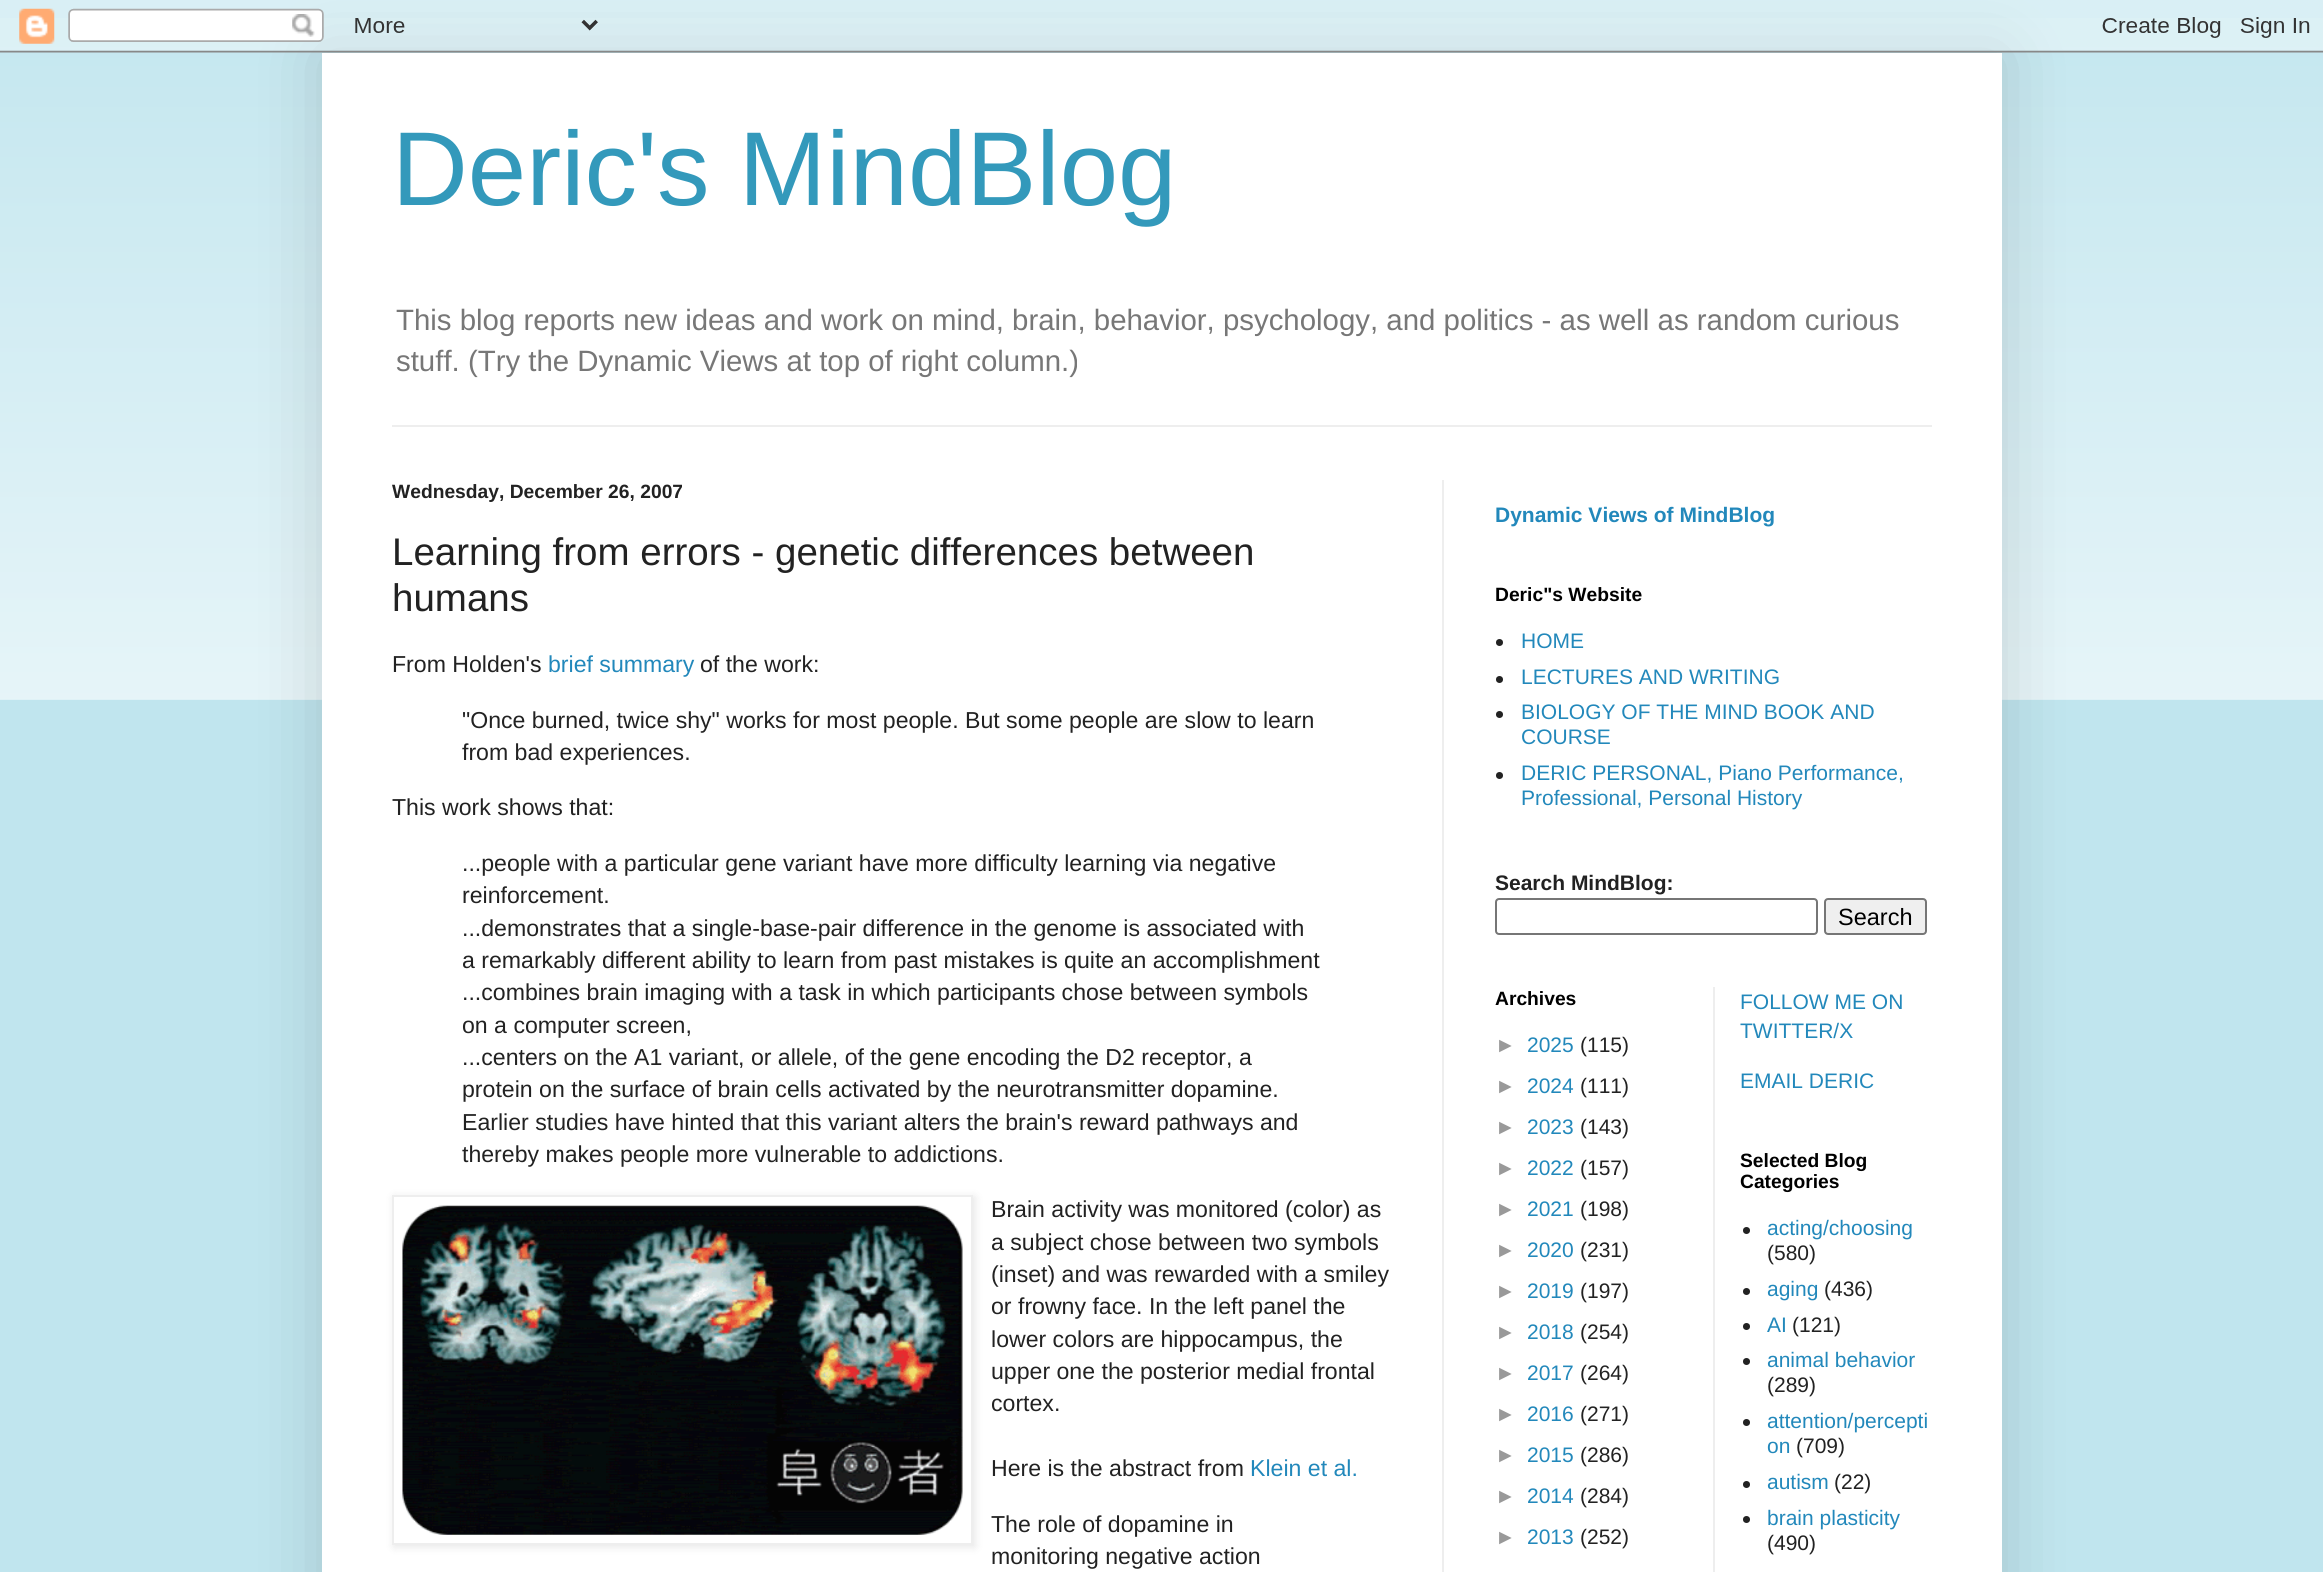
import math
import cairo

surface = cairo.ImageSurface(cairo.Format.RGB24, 2323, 1572)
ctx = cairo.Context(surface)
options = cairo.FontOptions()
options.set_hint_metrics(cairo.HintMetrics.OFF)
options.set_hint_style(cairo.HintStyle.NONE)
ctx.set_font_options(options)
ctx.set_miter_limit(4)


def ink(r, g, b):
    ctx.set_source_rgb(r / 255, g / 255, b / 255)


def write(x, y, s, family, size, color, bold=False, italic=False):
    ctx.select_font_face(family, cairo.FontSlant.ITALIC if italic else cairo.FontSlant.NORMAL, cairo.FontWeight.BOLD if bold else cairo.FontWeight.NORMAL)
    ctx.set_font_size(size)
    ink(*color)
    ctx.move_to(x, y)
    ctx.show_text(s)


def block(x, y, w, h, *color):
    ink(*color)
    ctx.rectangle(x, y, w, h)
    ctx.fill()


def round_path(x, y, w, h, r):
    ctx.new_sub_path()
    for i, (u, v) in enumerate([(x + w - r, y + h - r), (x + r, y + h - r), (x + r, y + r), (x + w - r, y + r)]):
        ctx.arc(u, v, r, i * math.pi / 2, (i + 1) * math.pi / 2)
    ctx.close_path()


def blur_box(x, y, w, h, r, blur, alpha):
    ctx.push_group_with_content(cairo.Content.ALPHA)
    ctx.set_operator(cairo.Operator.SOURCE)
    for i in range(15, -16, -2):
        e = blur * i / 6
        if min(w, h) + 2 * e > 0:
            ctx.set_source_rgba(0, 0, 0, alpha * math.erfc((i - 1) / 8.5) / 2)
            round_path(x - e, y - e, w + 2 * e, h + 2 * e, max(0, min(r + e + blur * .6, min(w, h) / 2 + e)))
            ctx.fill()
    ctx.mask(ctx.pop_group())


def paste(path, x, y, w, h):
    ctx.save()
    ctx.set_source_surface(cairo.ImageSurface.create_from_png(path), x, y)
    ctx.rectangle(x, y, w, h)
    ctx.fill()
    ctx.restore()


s1 = dict(family="Liberation Sans", size=105, color=(51, 153, 187))
s2 = dict(family="Liberation Sans", size=29.4, color=(119, 119, 119))
s3 = dict(family="Liberation Sans", size=19.25, color=(34, 34, 34), bold=True)
s4 = dict(family="Liberation Sans", size=38.5, color=(34, 34, 34))
s5 = dict(family="Liberation Sans", size=23.1, color=(34, 34, 34))
s6 = dict(family="Liberation Sans", size=23.1, color=(34, 136, 187))
s7 = dict(family="Liberation Sans", size=21, color=(34, 136, 187), bold=True)
s8 = dict(family="Liberation Sans", size=19.25, color=(0, 0, 0), bold=True)
s9 = dict(family="Liberation Sans", size=21, color=(34, 136, 187))
s10 = dict(family="Liberation Sans", size=21, color=(34, 34, 34), bold=True)
s11 = dict(family="Liberation Sans", size=23.5, color=(0, 0, 0))
s12 = dict(family="Liberation Sans", size=21, color=(153, 153, 153))
s13 = dict(family="Liberation Sans", size=21, color=(34, 34, 34))

ink(192, 229, 238)
ctx.paint()
paste("pic2.png", 0, 18, 2323, 682)
ink(0, 0, 0)
blur_box(322, 53, 1680, 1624, 0, 35, 0.15)
paste("pic1.png", 0, 0, 2323, 53)
block(322, 53, 1680, 1519, 255, 255, 255)
write(392, 205, "Deric's MindBlog", **s1)
write(396, 330, "This blog reports new ideas and work on mind, brain, behavior, psychology, and politics - as well as random curious", **s2)
write(396, 371, "stuff. (Try the Dynamic Views at top of right column.)", **s2)
block(392, 425, 1540, 2, 238, 238, 238)
block(1442, 480, 2, 1092, 238, 238, 238)
write(392, 498, "Wednesday, December 26, 2007", **s3)
write(392, 565, "Learning from errors - genetic differences between", **s4)
write(392, 611, "humans", **s4)
write(392, 672, "From Holden's", **s5)
write(548, 672, "brief summary", **s6)
write(700, 672, "of the work:", **s5)
write(462, 728, "\"Once burned, twice shy\" works for most people. But some people are slow to learn", **s5)
write(462, 760, "from bad experiences.", **s5)
write(392, 815, "This work shows that:", **s5)
write(462, 871, "...people with a particular gene variant have more difficulty learning via negative", **s5)
write(462, 903, "reinforcement.", **s5)
write(462, 936, "...demonstrates that a single-base-pair difference in the genome is associated with", **s5)
write(462, 968, "a remarkably different ability to learn from past mistakes is quite an accomplishment", **s5)
write(462, 1000, "...combines brain imaging with a task in which participants chose between symbols", **s5)
write(462, 1033, "on a computer screen,", **s5)
write(462, 1065, "...centers on the A1 variant, or allele, of the gene encoding the D2 receptor, a", **s5)
write(462, 1097, "protein on the surface of brain cells activated by the neurotransmitter dopamine.", **s5)
write(462, 1130, "Earlier studies have hinted that this variant alters the brain's reward pathways and", **s5)
write(462, 1162, "thereby makes people more vulnerable to addictions.", **s5)
ink(0, 0, 0)
blur_box(394, 1197, 581, 350, 0, 4.5, 0.1)
ink(255, 255, 255)
ctx.rectangle(393, 1196, 579, 348)
ctx.fill_preserve()
ink(238, 238, 238)
ctx.stroke()
paste("pic3.png", 402, 1205, 561, 330)
write(991, 1217, "Brain activity was monitored (color) as", **s5)
write(991, 1250, "a subject chose between two symbols", **s5)
write(991, 1282, "(inset) and was rewarded with a smiley", **s5)
write(991, 1314, "or frowny face. In the left panel the", **s5)
write(991, 1347, "lower colors are hippocampus, the", **s5)
write(991, 1379, "upper one the posterior medial frontal", **s5)
write(991, 1411, "cortex.", **s5)
write(991, 1476, "Here is the abstract from", **s5)
write(1250, 1476, "Klein et al.", **s6)
write(991, 1532, "The role of dopamine in", **s5)
write(991, 1564, "monitoring negative action", **s5)
write(1495, 522, "Dynamic Views of MindBlog", **s7)
write(1495, 601, "Deric\"s Website", **s8)
ink(34, 34, 34)
ctx.new_path()
ctx.arc(1499.5, 642.5, 3.5, 0, 2 * math.pi)
ctx.fill()
write(1521, 648, "HOME", **s9)
ink(34, 34, 34)
ctx.new_path()
ctx.arc(1499.5, 679.5, 3.5, 0, 2 * math.pi)
ctx.fill()
write(1521, 684, "LECTURES AND WRITING", **s9)
ink(34, 34, 34)
ctx.new_path()
ctx.arc(1499.5, 714.5, 3.5, 0, 2 * math.pi)
ctx.fill()
write(1521, 719, "BIOLOGY OF THE MIND BOOK AND", **s9)
write(1521, 744, "COURSE", **s9)
ink(34, 34, 34)
ctx.new_path()
ctx.arc(1499.5, 775.5, 3.5, 0, 2 * math.pi)
ctx.fill()
write(1521, 780, "DERIC PERSONAL, Piano Performance,", **s9)
write(1521, 805, "Professional, Personal History", **s9)
write(1495, 890, "Search MindBlog:", **s10)
round_path(1496, 899, 321, 35, 3)
ink(118, 118, 118)
ctx.stroke()
ink(239, 239, 239)
round_path(1825, 899, 101, 35, 3)
ctx.fill_preserve()
ink(118, 118, 118)
ctx.stroke()
write(1838, 925, "Search", **s11)
write(1495, 1005, "Archives", **s8)
write(1495, 1052, "►", **s12)
write(1527, 1052, "2025", **s9)
write(1580, 1052, "(115)", **s13)
write(1495, 1093, "►", **s12)
write(1527, 1093, "2024", **s9)
write(1580, 1093, "(111)", **s13)
write(1495, 1134, "►", **s12)
write(1527, 1134, "2023", **s9)
write(1580, 1134, "(143)", **s13)
write(1495, 1175, "►", **s12)
write(1527, 1175, "2022", **s9)
write(1580, 1175, "(157)", **s13)
write(1495, 1216, "►", **s12)
write(1527, 1216, "2021", **s9)
write(1580, 1216, "(198)", **s13)
write(1495, 1257, "►", **s12)
write(1527, 1257, "2020", **s9)
write(1580, 1257, "(231)", **s13)
write(1495, 1298, "►", **s12)
write(1527, 1298, "2019", **s9)
write(1580, 1298, "(197)", **s13)
write(1495, 1339, "►", **s12)
write(1527, 1339, "2018", **s9)
write(1580, 1339, "(254)", **s13)
write(1495, 1380, "►", **s12)
write(1527, 1380, "2017", **s9)
write(1580, 1380, "(264)", **s13)
write(1495, 1421, "►", **s12)
write(1527, 1421, "2016", **s9)
write(1580, 1421, "(271)", **s13)
write(1495, 1462, "►", **s12)
write(1527, 1462, "2015", **s9)
write(1580, 1462, "(286)", **s13)
write(1495, 1503, "►", **s12)
write(1527, 1503, "2014", **s9)
write(1580, 1503, "(284)", **s13)
write(1495, 1544, "►", **s12)
write(1527, 1544, "2013", **s9)
write(1580, 1544, "(252)", **s13)
block(1713, 987, 2, 585, 238, 238, 238)
write(1740, 1009, "FOLLOW ME ON", **s9)
write(1740, 1038, "TWITTER/X", **s9)
write(1740, 1088, "EMAIL DERIC", **s9)
write(1740, 1167, "Selected Blog", **s8)
write(1740, 1188, "Categories", **s8)
ink(34, 34, 34)
ctx.new_path()
ctx.arc(1746.5, 1230.5, 3.5, 0, 2 * math.pi)
ctx.fill()
write(1767, 1235, "acting/choosing", **s9)
write(1767, 1260, "(580)", **s13)
ctx.new_path()
ctx.arc(1746.5, 1291.5, 3.5, 0, 2 * math.pi)
ctx.fill()
write(1767, 1296, "aging", **s9)
write(1824, 1296, "(436)", **s13)
ctx.new_path()
ctx.arc(1746.5, 1326.5, 3.5, 0, 2 * math.pi)
ctx.fill()
write(1767, 1332, "AI", **s9)
write(1792, 1332, "(121)", **s13)
ctx.new_path()
ctx.arc(1746.5, 1361.5, 3.5, 0, 2 * math.pi)
ctx.fill()
write(1767, 1367, "animal behavior", **s9)
write(1767, 1392, "(289)", **s13)
ctx.new_path()
ctx.arc(1746.5, 1422.5, 3.5, 0, 2 * math.pi)
ctx.fill()
write(1767, 1428, "attention/percepti", **s9)
write(1767, 1453, "on", **s9)
write(1796, 1453, "(709)", **s13)
ctx.new_path()
ctx.arc(1746.5, 1484.5, 3.5, 0, 2 * math.pi)
ctx.fill()
write(1767, 1489, "autism", **s9)
write(1834, 1489, "(22)", **s13)
ctx.new_path()
ctx.arc(1746.5, 1519.5, 3.5, 0, 2 * math.pi)
ctx.fill()
write(1767, 1525, "brain plasticity", **s9)
write(1767, 1550, "(490)", **s13)
surface.write_to_png("screenshot.png")
